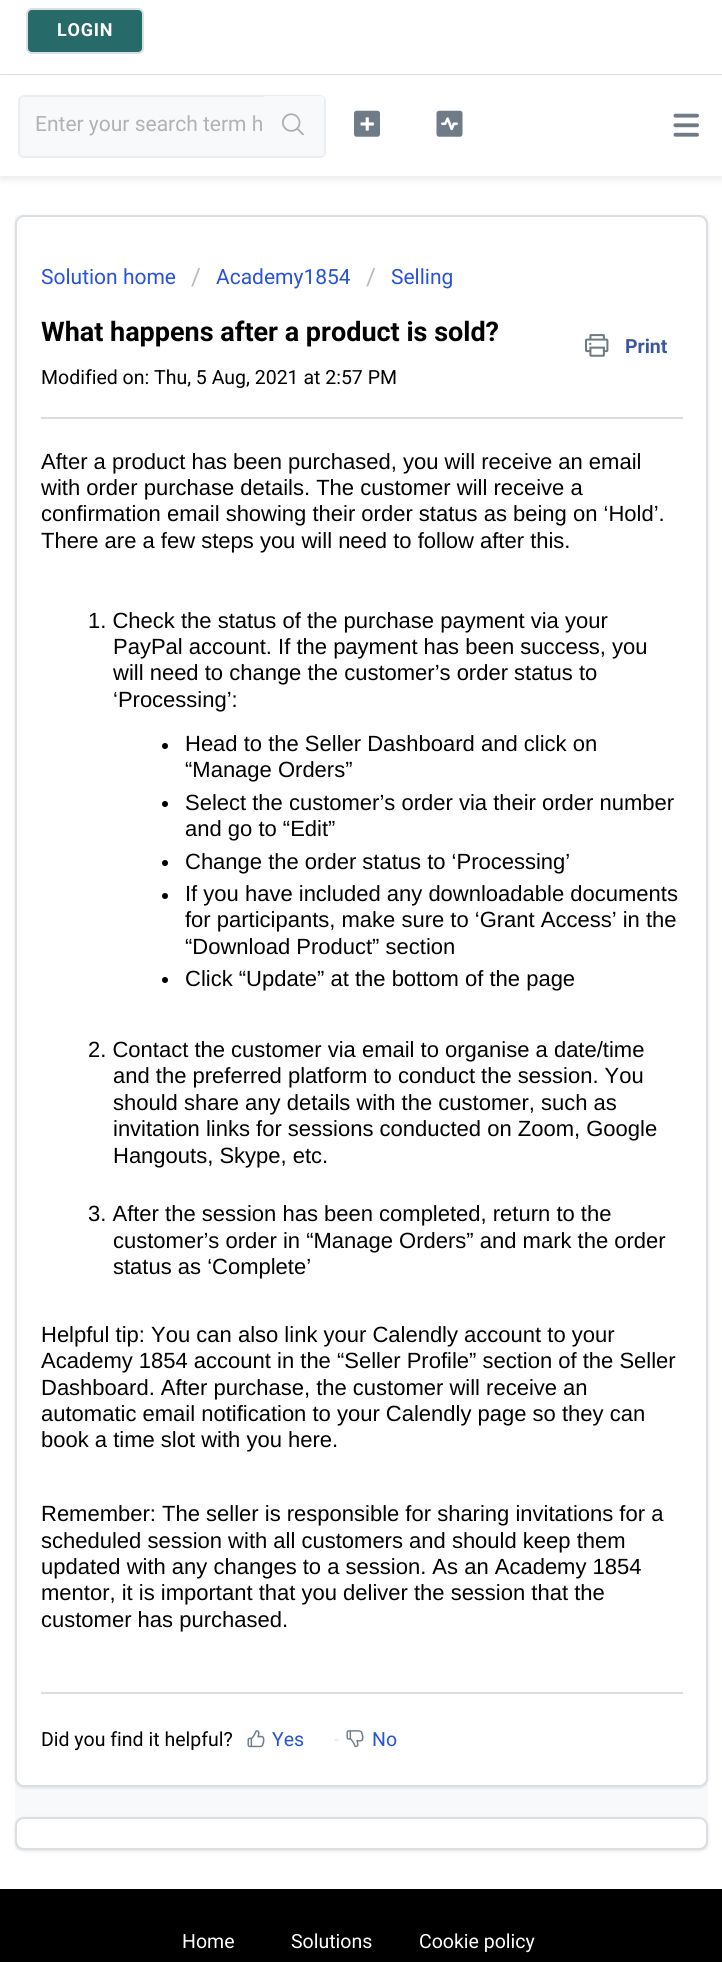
import math
import cairo

surface = cairo.ImageSurface(cairo.Format.RGB24, 722, 1962)
ctx = cairo.Context(surface)
options = cairo.FontOptions()
options.set_hint_metrics(cairo.HintMetrics.OFF)
options.set_hint_style(cairo.HintStyle.NONE)
ctx.set_font_options(options)
ctx.set_miter_limit(4)


def ink(r, g, b):
    ctx.set_source_rgb(r / 255, g / 255, b / 255)


def write(x, y, s, family, size, color, bold=False, italic=False):
    ctx.select_font_face(family, cairo.FontSlant.ITALIC if italic else cairo.FontSlant.NORMAL, cairo.FontWeight.BOLD if bold else cairo.FontWeight.NORMAL)
    ctx.set_font_size(size)
    ink(*color)
    ctx.move_to(x, y)
    ctx.show_text(s)


def write_spaced(x, y, s, letter, word):
    ctx.move_to(x, y)
    for ch in s:
        ctx.show_text(ch)
        ctx.rel_move_to(letter + word * (ch == ' '), 0)


def block(x, y, w, h, *color):
    ink(*color)
    ctx.rectangle(x, y, w, h)
    ctx.fill()


def round_path(x, y, w, h, r):
    ctx.new_sub_path()
    for i, (u, v) in enumerate([(x + w - r, y + h - r), (x + r, y + h - r), (x + r, y + r), (x + w - r, y + r)]):
        ctx.arc(u, v, r, i * math.pi / 2, (i + 1) * math.pi / 2)
    ctx.close_path()


def blur_box(x, y, w, h, r, blur, alpha):
    ctx.push_group_with_content(cairo.Content.ALPHA)
    ctx.set_operator(cairo.Operator.SOURCE)
    for i in range(15, -16, -2):
        e = blur * i / 6
        if min(w, h) + 2 * e > 0:
            ctx.set_source_rgba(0, 0, 0, alpha * math.erfc((i - 1) / 8.5) / 2)
            round_path(x - e, y - e, w + 2 * e, h + 2 * e, max(0, min(r + e + blur * .6, min(w, h) / 2 + e)))
            ctx.fill()
    ctx.mask(ctx.pop_group())


def paste(path, x, y, w, h):
    ctx.save()
    ctx.set_source_surface(cairo.ImageSurface.create_from_png(path), x, y)
    ctx.rectangle(x, y, w, h)
    ctx.fill()
    ctx.restore()


s1 = dict(family="Roboto", size=21, color=(178, 178, 178))
s2 = dict(family="Roboto", size=21, color=(39, 83, 215))
s3 = dict(family="Roboto", size=24, color=(187, 187, 187))
s4 = dict(family="Roboto", size=27, color=(0, 0, 0), bold=True)
s5 = dict(family="Roboto", size=19.5, color=(59, 89, 152), bold=True)
s6 = dict(family="Roboto", size=19.5, color=(0, 0, 0))
s7 = dict(family="Liberation Sans", size=22, color=(0, 0, 0))
s8 = dict(family="Roboto", size=19.5, color=(39, 83, 215))
s9 = dict(family="Roboto", size=19.5, color=(229, 229, 229))
s10 = dict(family="Roboto", size=19.5, color=(255, 255, 255))

ink(255, 255, 255)
ctx.paint()
block(0, 74, 722, 1, 218, 223, 227)
ink(38, 107, 105)
round_path(27, 9, 116, 44, 5)
ctx.fill_preserve()
ink(218, 223, 227)
ctx.stroke()
ctx.select_font_face("Roboto", cairo.FontSlant.NORMAL, cairo.FontWeight.BOLD)
ctx.set_font_size(18)
ink(255, 255, 255)
write_spaced(57, 36, "LOGIN", 0.75, 0)
ink(238, 238, 238)
blur_box(0, 80, 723, 100, 0, 3, 1)
block(0, 77, 722, 99, 255, 255, 255)
paste("pic1.png", 673, 113, 26, 24)
ink(248, 249, 250)
round_path(19, 96, 306, 61, 5)
ctx.fill_preserve()
ink(235, 238, 240)
ctx.stroke()
write(35, 131, "Enter your search term h", **s1)
ink(248, 249, 250)
round_path(263, 96, 61, 60, 3)
ctx.fill()
paste("pic2.png", 282, 113, 22, 23)
paste("pic3.png", 354, 110, 26, 27)
paste("pic4.png", 436, 110, 27, 27)
block(15, 215, 693, 1635, 248, 249, 250)
ink(63, 63, 68)
blur_box(15, 216, 693, 1572, 9, 1.5, 0.15)
ink(255, 255, 255)
round_path(16, 216, 691, 1570, 8)
ctx.fill_preserve()
ink(218, 223, 227)
ctx.stroke()
write(41, 284, "Solution home", **s2)
write(191, 285, "/", **s3)
write(216, 284, "Academy1854", **s2)
write(366, 285, "/", **s3)
write(391, 284, "Selling", **s2)
write(41, 341, "What happens after a product is sold?", **s4)
paste("pic5.png", 585, 334, 24, 23)
write(625, 353, "Print", **s5)
write(41, 384, "Modified on: Thu, 5 Aug, 2021 at 2:57 PM", **s6)
block(41, 417, 642, 2, 220, 220, 220)
write(41, 469, "After a product has been purchased, you will receive an email", **s7)
write(41, 495, "with order purchase details. The customer will receive a", **s7)
write(41, 521, "confirmation email showing their order status as being on ‘Hold’.", **s7)
write(41, 548, "There are a few steps you will need to follow after this.", **s7)
write(88, 628, "1. Check the status of the purchase payment via your", **s7)
write(113, 654, "PayPal account. If the payment has been success, you", **s7)
write(113, 680, "will need to change the customer’s order status to", **s7)
write(113, 707, "‘Processing’:", **s7)
ctx.new_path()
ctx.arc(165, 746, 3, 0, 2 * math.pi)
ctx.fill()
write(185, 751, "Head to the Seller Dashboard and click on", **s7)
write(185, 777, "“Manage Orders”", **s7)
ctx.new_path()
ctx.arc(165, 804, 3, 0, 2 * math.pi)
ctx.fill()
write(185, 810, "Select the customer’s order via their order number", **s7)
write(185, 836, "and go to “Edit”", **s7)
ctx.new_path()
ctx.arc(165, 863, 3, 0, 2 * math.pi)
ctx.fill()
write(185, 869, "Change the order status to ‘Processing’", **s7)
ctx.new_path()
ctx.arc(165, 896, 3, 0, 2 * math.pi)
ctx.fill()
write(185, 901, "If you have included any downloadable documents", **s7)
write(185, 927, "for participants, make sure to ‘Grant Access’ in the", **s7)
write(185, 954, "“Download Product” section", **s7)
ctx.new_path()
ctx.arc(165, 980, 3, 0, 2 * math.pi)
ctx.fill()
write(185, 986, "Click “Update” at the bottom of the page", **s7)
write(88, 1057, "2. Contact the customer via email to organise a date/time", **s7)
write(113, 1083, "and the preferred platform to conduct the session. You", **s7)
write(113, 1110, "should share any details with the customer, such as", **s7)
write(113, 1136, "invitation links for sessions conducted on Zoom, Google", **s7)
write(113, 1163, "Hangouts, Skype, etc.", **s7)
write(88, 1221, "3. After the session has been completed, return to the", **s7)
write(113, 1248, "customer’s order in “Manage Orders” and mark the order", **s7)
write(113, 1274, "status as ‘Complete’", **s7)
write(41, 1342, "Helpful tip: You can also link your Calendly account to your", **s7)
write(41, 1368, "Academy 1854 account in the “Seller Profile” section of the Seller", **s7)
write(41, 1395, "Dashboard. After purchase, the customer will receive an", **s7)
write(41, 1421, "automatic email notification to your Calendly page so they can", **s7)
write(41, 1447, "book a time slot with you here.", **s7)
write(41, 1521, "Remember: The seller is responsible for sharing invitations for a", **s7)
write(41, 1548, "scheduled session with all customers and should keep them", **s7)
write(41, 1574, "updated with any changes to a session. As an Academy 1854", **s7)
write(41, 1600, "mentor, it is important that you deliver the session that the", **s7)
write(41, 1627, "customer has purchased.", **s7)
block(41, 1692, 642, 2, 220, 220, 220)
write(41, 1746, "Did you find it helpful?", **s6)
paste("pic6.png", 247, 1730, 18, 18)
write(272, 1746, "Yes", **s8)
write(334, 1746, "-", **s9)
paste("pic7.png", 346, 1730, 18, 18)
write(372, 1746, "No", **s8)
ink(63, 63, 68)
blur_box(15, 1818, 693, 33, 9, 1.5, 0.15)
ink(255, 255, 255)
round_path(16, 1818, 691, 31, 8)
ctx.fill_preserve()
ink(218, 223, 227)
ctx.stroke()
block(0, 1889, 722, 73, 0, 0, 0)
write(182, 1948, "Home", **s10)
write(291, 1948, "Solutions", **s10)
write(419, 1948, "Cookie policy", **s10)
surface.write_to_png("screenshot.png")
